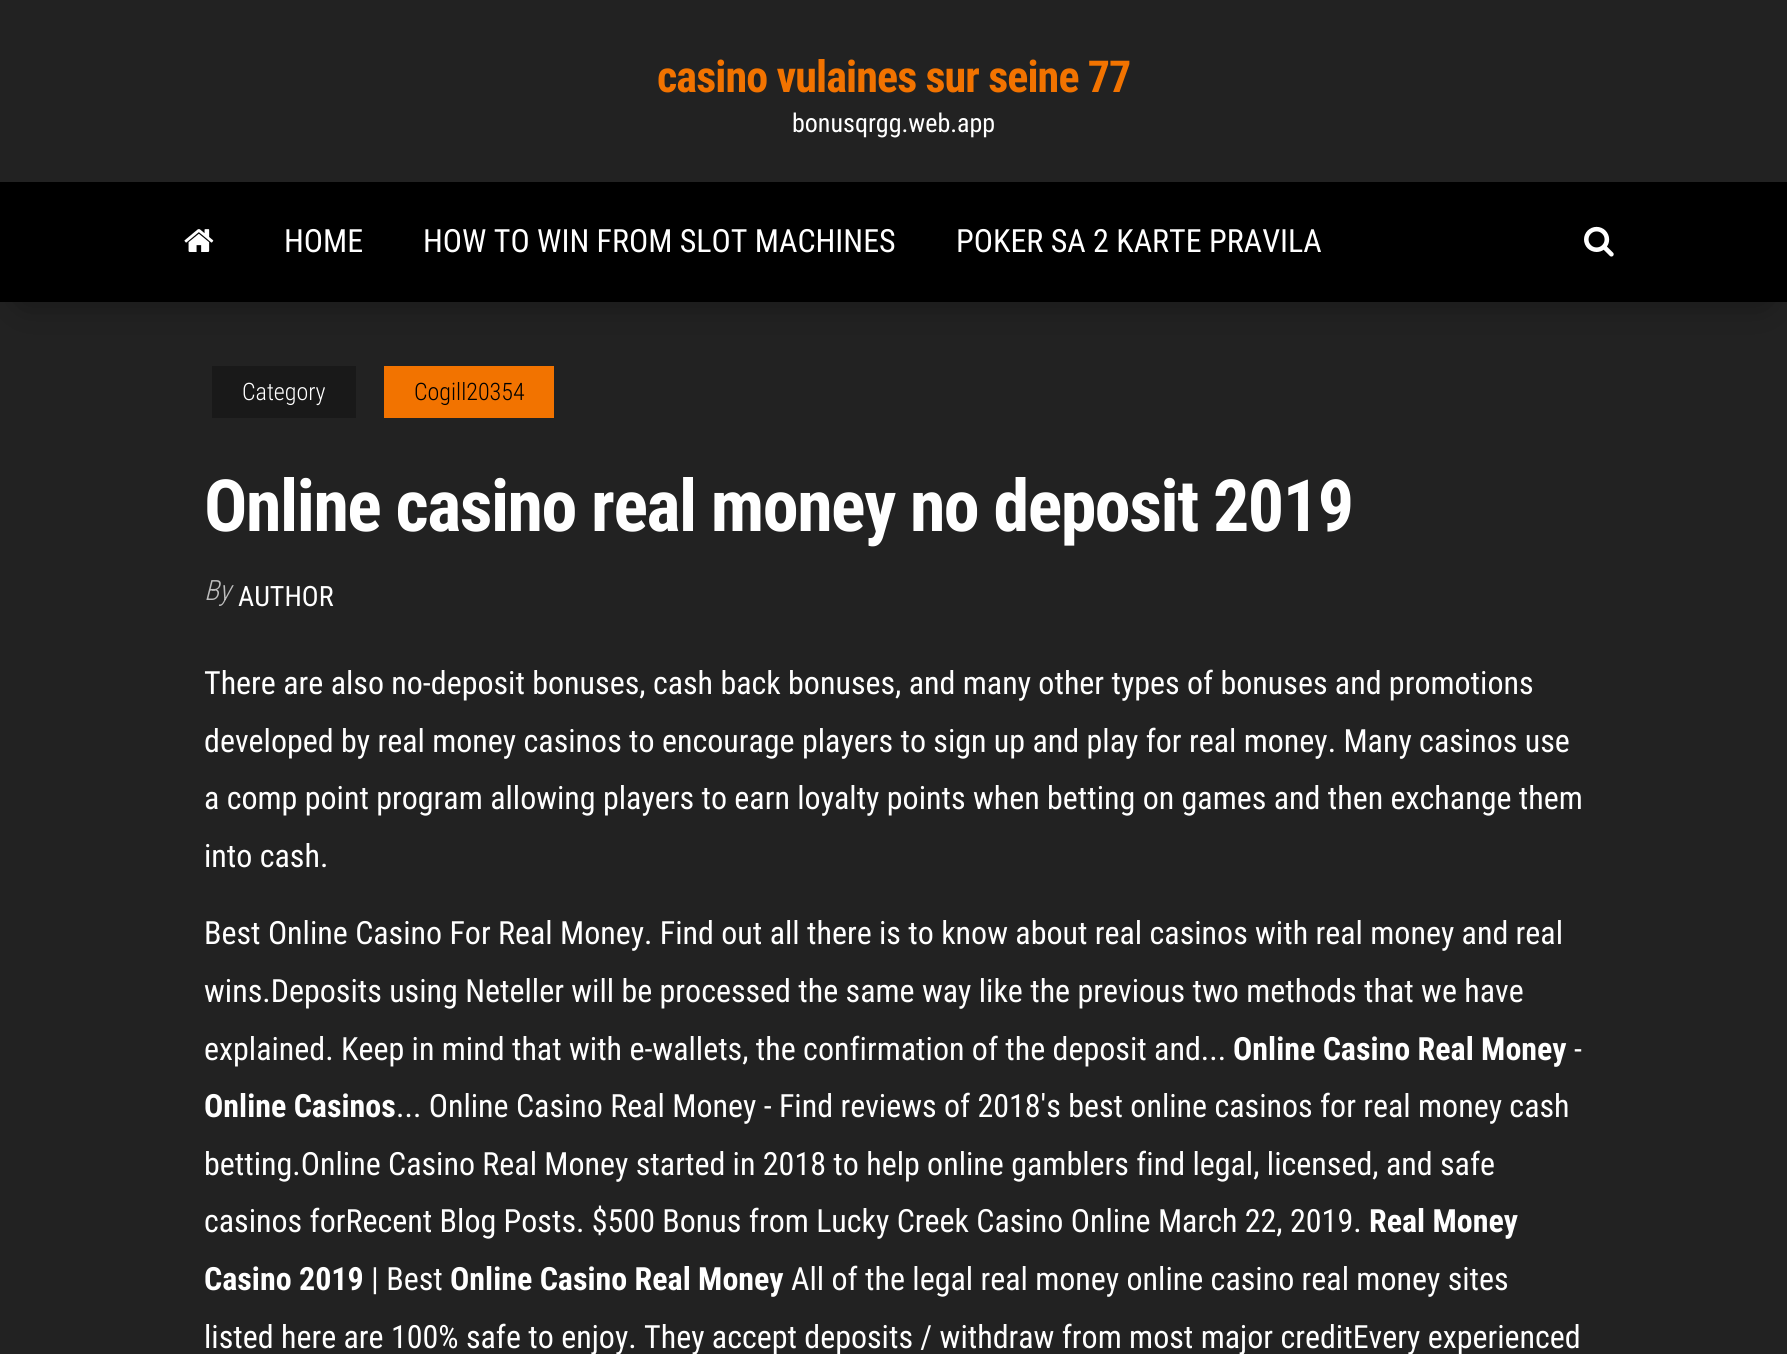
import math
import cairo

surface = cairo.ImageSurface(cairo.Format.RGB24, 1787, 1354)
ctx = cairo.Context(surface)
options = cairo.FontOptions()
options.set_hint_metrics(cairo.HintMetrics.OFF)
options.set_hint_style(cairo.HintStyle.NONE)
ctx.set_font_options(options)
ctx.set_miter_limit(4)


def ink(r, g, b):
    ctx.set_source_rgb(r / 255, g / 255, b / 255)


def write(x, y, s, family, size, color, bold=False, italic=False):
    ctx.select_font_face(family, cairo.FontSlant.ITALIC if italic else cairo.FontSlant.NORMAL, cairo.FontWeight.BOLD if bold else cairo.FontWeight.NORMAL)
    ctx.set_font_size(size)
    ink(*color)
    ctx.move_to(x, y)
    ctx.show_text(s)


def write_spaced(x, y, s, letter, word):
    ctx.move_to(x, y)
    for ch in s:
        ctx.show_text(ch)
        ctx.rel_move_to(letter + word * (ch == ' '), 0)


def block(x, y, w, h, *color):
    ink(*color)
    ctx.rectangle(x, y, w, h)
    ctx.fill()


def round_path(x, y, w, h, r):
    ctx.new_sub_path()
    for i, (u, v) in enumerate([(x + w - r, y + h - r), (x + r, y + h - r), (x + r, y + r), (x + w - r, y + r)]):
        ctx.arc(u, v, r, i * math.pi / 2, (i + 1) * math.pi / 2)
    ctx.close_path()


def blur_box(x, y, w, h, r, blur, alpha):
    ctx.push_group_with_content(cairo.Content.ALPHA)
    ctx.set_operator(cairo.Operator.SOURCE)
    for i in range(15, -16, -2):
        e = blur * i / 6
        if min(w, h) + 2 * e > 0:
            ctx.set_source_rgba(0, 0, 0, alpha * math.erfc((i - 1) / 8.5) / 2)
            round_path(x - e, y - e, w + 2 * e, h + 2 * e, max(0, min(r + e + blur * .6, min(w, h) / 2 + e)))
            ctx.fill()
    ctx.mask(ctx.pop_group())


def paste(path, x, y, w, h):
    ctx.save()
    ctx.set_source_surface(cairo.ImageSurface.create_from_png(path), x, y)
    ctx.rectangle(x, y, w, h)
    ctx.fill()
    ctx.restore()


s1 = dict(family="Roboto Condensed", size=26, color=(255, 255, 255))
s2 = dict(family="Roboto Condensed", size=32, color=(255, 255, 255))
s3 = dict(family="Roboto Condensed Light", size=24, color=(255, 255, 255))
s4 = dict(family="Roboto Condensed Light", size=24, color=(0, 0, 0))
s5 = dict(family="Roboto Condensed Light", size=28, color=(189, 189, 189), italic=True)
s6 = dict(family="Roboto Condensed", size=28, color=(255, 255, 255))
s7 = dict(family="Roboto Condensed", size=32, color=(255, 255, 255), bold=True)

ink(34, 34, 34)
ctx.paint()
ctx.select_font_face("Roboto Condensed", cairo.FontSlant.NORMAL, cairo.FontWeight.BOLD)
ctx.set_font_size(44)
ink(242, 115, 0)
write_spaced(657, 92, "casino vulaines sur seine 77", -0.9, 0)
write(792, 132, "bonusqrgg.web.app", **s1)
ink(0, 0, 0)
blur_box(24, 226, 1740, 72, 0, 20, 0.42)
block(0, 182, 1787, 120, 0, 0, 0)
paste("pic1.png", 184, 229, 30, 23)
write(284, 252, "HOME", **s2)
write(423, 252, "HOW TO WIN FROM SLOT MACHINES", **s2)
write(956, 252, "POKER SA 2 KARTE PRAVILA", **s2)
paste("pic2.png", 1584, 226, 30, 31)
block(212, 366, 144, 52, 25, 25, 25)
write(242, 400, "Category", **s3)
block(384, 366, 170, 52, 242, 115, 0)
write(414, 400, "Cogill20354", **s4)
ctx.select_font_face("Roboto Condensed", cairo.FontSlant.NORMAL, cairo.FontWeight.BOLD)
ctx.set_font_size(72)
ink(255, 255, 255)
write_spaced(204, 531, "Online casino real money no deposit 2019", -1.45, 0)
write(204, 600, "By", **s5)
write(238, 606, "AUTHOR", **s6)
write(204, 694, "There are also no-deposit bonuses, cash back bonuses, and many other types of bonuses and promotions", **s2)
write(204, 752, "developed by real money casinos to encourage players to sign up and play for real money. Many casinos use", **s2)
write(204, 809, "a comp point program allowing players to earn loyalty points when betting on games and then exchange them", **s2)
write(204, 867, "into cash.", **s2)
write(204, 944, "Best Online Casino For Real Money. Find out all there is to know about real casinos with real money and real", **s2)
write(204, 1002, "wins.Deposits using Neteller will be processed the same way like the previous two methods that we have", **s2)
write(204, 1060, "explained. Keep in mind that with e-wallets, the confirmation of the deposit and...", **s2)
write(1233, 1060, "Online Casino Real Money", **s7)
write(1574, 1060, "-", **s2)
write(204, 1117, "Online Casinos", **s7)
write(396, 1117, "... Online Casino Real Money - Find reviews of 2018's best online casinos for real money cash", **s2)
write(204, 1175, "betting.Online Casino Real Money started in 2018 to help online gamblers find legal, licensed, and safe", **s2)
write(204, 1232, "casinos forRecent Blog Posts. $500 Bonus from Lucky Creek Casino Online March 22, 2019.", **s2)
write(1369, 1232, "Real Money", **s7)
write(204, 1290, "Casino 2019", **s7)
write(371, 1290, "| Best", **s2)
write(450, 1290, "Online Casino Real Money", **s7)
write(791, 1290, "All of the legal real money online casino real money sites", **s2)
write(204, 1348, "listed here are 100% safe to enjoy. They accept deposits / withdraw from most major creditEvery experienced", **s2)
surface.write_to_png("screenshot.png")
